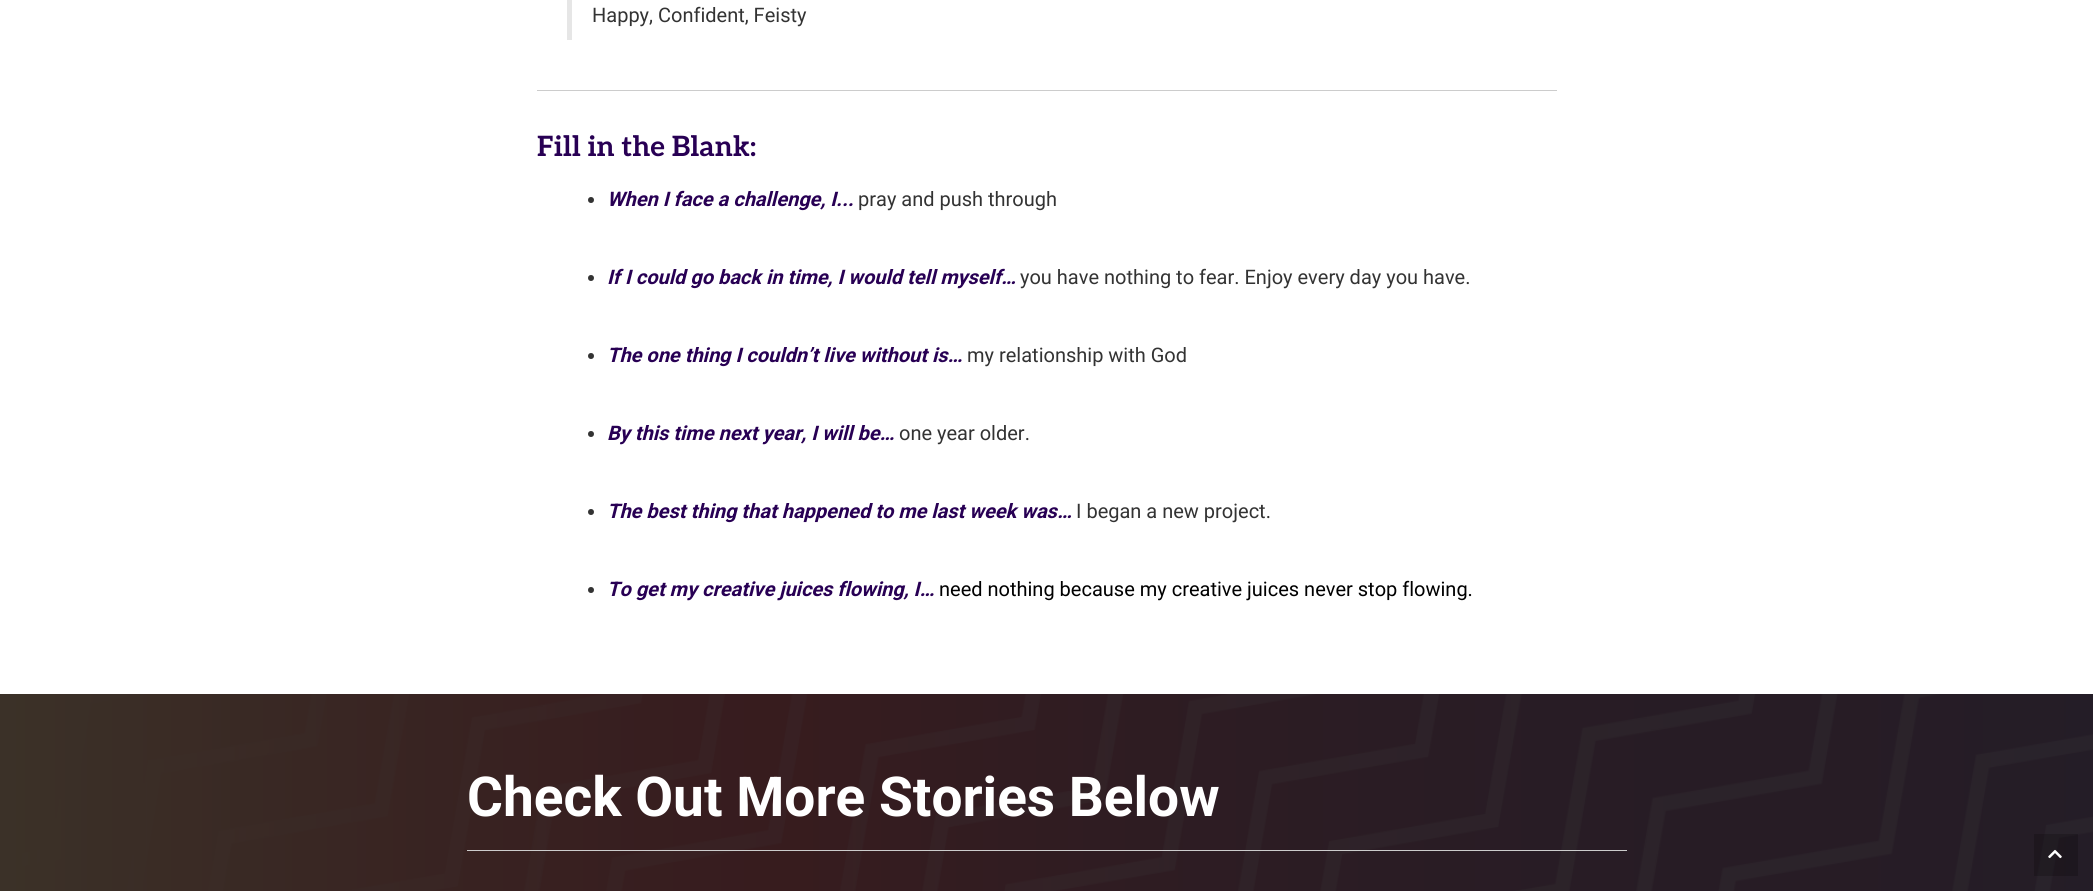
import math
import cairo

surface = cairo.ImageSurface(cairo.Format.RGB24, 2093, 891)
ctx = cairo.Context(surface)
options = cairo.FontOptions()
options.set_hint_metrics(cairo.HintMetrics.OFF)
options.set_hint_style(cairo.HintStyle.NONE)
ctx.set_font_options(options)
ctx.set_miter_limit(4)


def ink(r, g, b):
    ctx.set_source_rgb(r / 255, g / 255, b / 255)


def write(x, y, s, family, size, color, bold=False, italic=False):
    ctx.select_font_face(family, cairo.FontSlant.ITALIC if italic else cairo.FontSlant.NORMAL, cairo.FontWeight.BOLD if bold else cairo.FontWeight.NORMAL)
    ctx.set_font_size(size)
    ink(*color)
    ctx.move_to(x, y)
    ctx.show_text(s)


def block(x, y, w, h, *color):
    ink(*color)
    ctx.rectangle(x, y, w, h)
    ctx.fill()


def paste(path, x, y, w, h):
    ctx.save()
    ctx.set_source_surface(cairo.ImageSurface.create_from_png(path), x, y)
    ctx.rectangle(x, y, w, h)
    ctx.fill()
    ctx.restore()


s1 = dict(family="Roboto", size=20, color=(51, 51, 51))
s2 = dict(family="Aleo", size=28, color=(40, 0, 84), bold=True)
s3 = dict(family="Roboto", size=20, color=(40, 0, 84), bold=True, italic=True)
s4 = dict(family="Roboto", size=20, color=(0, 0, 0))
s5 = dict(family="Roboto", size=55, color=(255, 255, 255), bold=True)

ink(255, 255, 255)
ctx.paint()
block(567, 0, 5, 40, 230, 230, 230)
write(592, 22, "Happy, Confident, Feisty", **s1)
block(537, 90, 1020, 1, 204, 204, 204)
write(537, 156, "Fill in the Blank:", **s2)
ink(51, 51, 51)
ctx.new_path()
ctx.arc(591, 200, 3, 0, 2 * math.pi)
ctx.fill()
write(607, 206, "When I face a challenge, I...", **s3)
write(858, 206, "pray and push through", **s1)
ctx.new_path()
ctx.arc(591, 278, 3, 0, 2 * math.pi)
ctx.fill()
write(607, 284, "If I could go back in time, I would tell myself…", **s3)
write(1020, 284, "you have nothing to fear. Enjoy every day you have.", **s1)
ctx.new_path()
ctx.arc(591, 356, 3, 0, 2 * math.pi)
ctx.fill()
write(607, 362, "The one thing I couldn’t live without is…", **s3)
write(967, 362, "my relationship with God", **s1)
ctx.new_path()
ctx.arc(591, 434, 3, 0, 2 * math.pi)
ctx.fill()
write(607, 440, "By this time next year, I will be…", **s3)
write(899, 440, "one year older.", **s1)
ctx.new_path()
ctx.arc(591, 512, 3, 0, 2 * math.pi)
ctx.fill()
write(607, 518, "The best thing that happened to me last week was…", **s3)
write(1076, 518, "I began a new project.", **s1)
ctx.new_path()
ctx.arc(591, 590, 3, 0, 2 * math.pi)
ctx.fill()
write(607, 596, "To get my creative juices flowing, I…", **s3)
write(939, 596, "need nothing because my creative juices never stop flowing.", **s4)
paste("pic1.png", 0, 694, 2093, 197)
write(467, 816, "Check Out More Stories Below", **s5)
block(467, 850, 1160, 1, 204, 204, 204)
ctx.set_source_rgba(0, 0, 0, 0.2)
ctx.rectangle(2034, 834, 44, 42)
ctx.fill()
paste("pic2.png", 2048, 849, 14, 10)
surface.write_to_png("screenshot.png")
